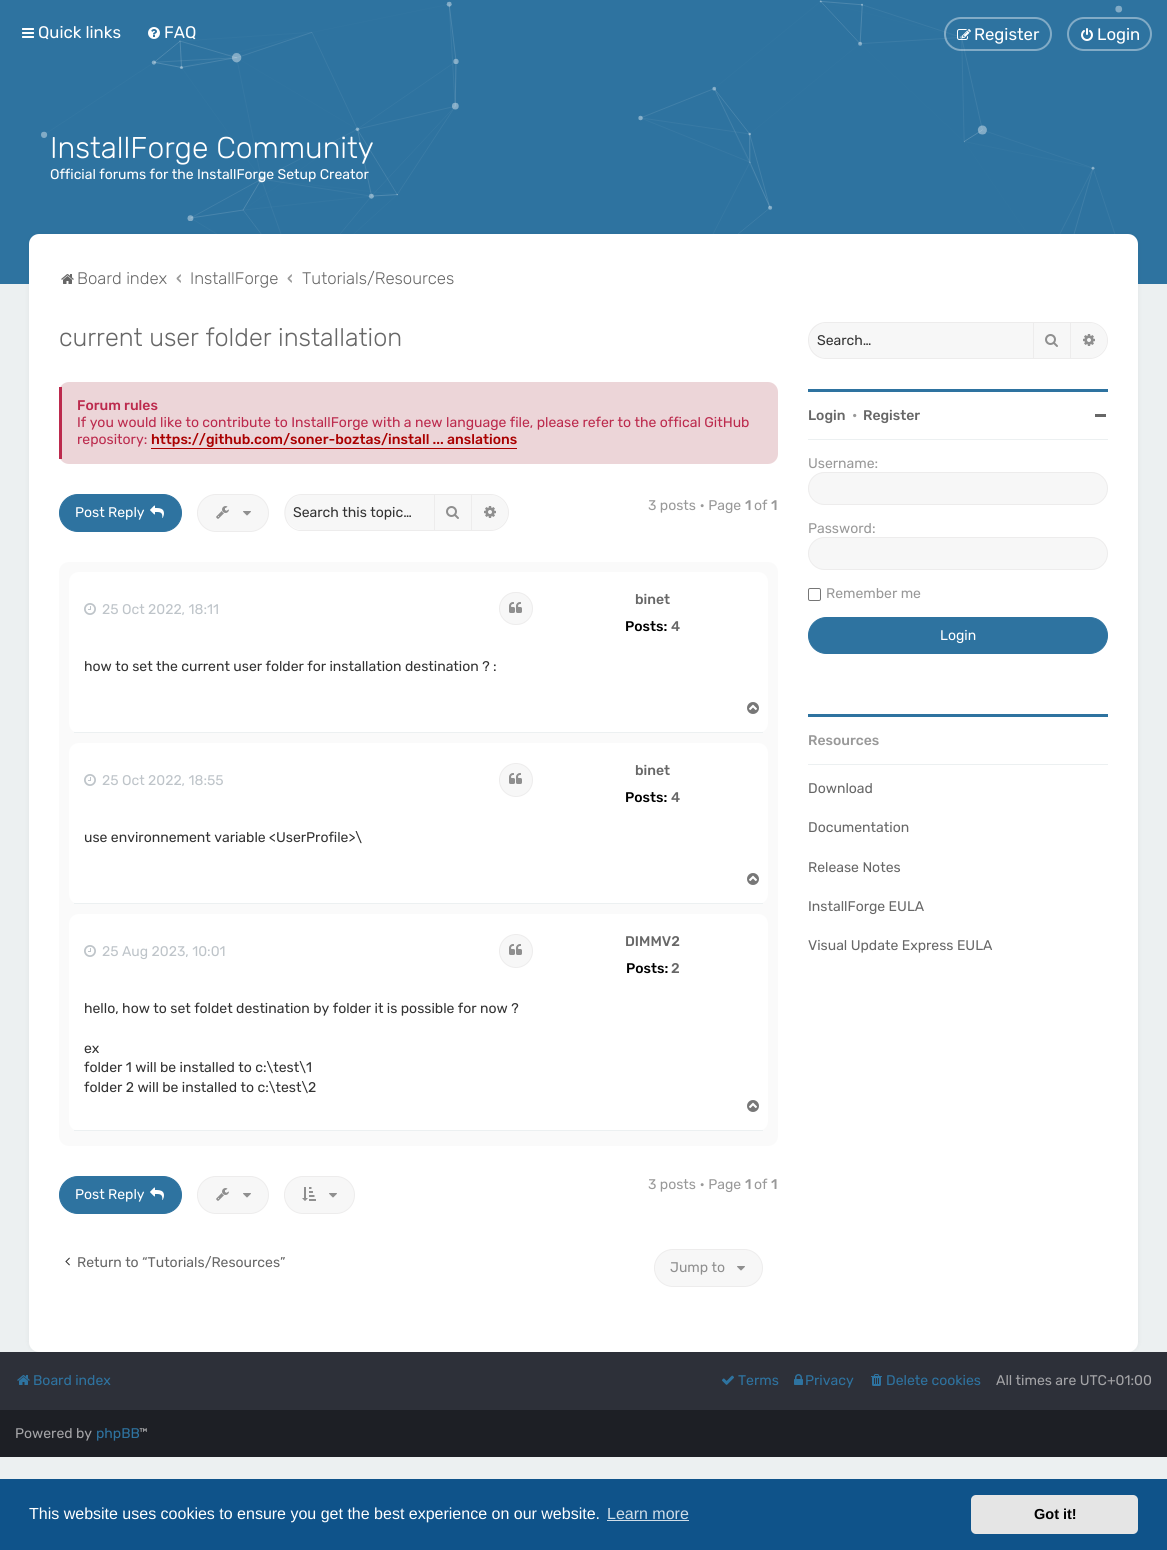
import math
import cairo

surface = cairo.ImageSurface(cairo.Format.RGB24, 1167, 1550)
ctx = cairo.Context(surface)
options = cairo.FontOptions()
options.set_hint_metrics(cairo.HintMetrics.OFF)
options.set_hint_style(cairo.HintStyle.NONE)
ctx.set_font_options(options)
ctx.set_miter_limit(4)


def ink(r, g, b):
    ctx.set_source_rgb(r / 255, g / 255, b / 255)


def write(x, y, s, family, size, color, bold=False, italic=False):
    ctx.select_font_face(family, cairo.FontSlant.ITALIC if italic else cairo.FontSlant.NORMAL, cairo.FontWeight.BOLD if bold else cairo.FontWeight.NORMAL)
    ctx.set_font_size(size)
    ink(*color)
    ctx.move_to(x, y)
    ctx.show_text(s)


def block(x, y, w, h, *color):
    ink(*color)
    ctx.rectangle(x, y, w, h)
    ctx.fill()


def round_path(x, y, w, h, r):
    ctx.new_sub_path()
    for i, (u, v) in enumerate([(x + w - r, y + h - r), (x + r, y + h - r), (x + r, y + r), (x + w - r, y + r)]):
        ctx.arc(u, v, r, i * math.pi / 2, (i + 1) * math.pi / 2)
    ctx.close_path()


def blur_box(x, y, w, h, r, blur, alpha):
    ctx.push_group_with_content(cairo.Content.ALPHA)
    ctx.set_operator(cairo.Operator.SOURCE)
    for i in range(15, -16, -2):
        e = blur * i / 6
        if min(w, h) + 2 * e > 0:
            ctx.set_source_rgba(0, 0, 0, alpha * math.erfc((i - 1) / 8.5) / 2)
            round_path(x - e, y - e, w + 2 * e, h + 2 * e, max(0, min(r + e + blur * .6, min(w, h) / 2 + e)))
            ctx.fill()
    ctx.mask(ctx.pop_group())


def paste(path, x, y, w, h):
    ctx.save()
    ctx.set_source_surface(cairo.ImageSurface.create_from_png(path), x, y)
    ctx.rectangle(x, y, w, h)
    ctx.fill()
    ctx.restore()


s1 = dict(family="Rubik", size=16.75, color=(255, 255, 255))
s2 = dict(family="Rubik Light", size=30, color=(255, 255, 255))
s3 = dict(family="Rubik", size=14, color=(255, 255, 255))
s4 = dict(family="Rubik Light", size=16.75, color=(103, 103, 103))
s5 = dict(family="Rubik Medium", size=16.75, color=(153, 153, 153))
s6 = dict(family="Rubik Light", size=25.25, color=(103, 103, 103))
s7 = dict(family="Rubik Medium", size=14, color=(188, 42, 77))
s8 = dict(family="Rubik", size=14, color=(188, 42, 77))
s9 = dict(family="Rubik Medium", size=14, color=(170, 0, 0))
s10 = dict(family="Rubik", size=14, color=(51, 51, 51))
s11 = dict(family="Rubik", size=14, color=(153, 153, 153))
s12 = dict(family="Rubik Medium", size=14, color=(153, 153, 153))
s13 = dict(family="Rubik", size=14, color=(190, 196, 201))
s14 = dict(family="Rubik Medium", size=14, color=(103, 103, 103))
s15 = dict(family="Rubik Medium", size=14, color=(0, 0, 0))
s16 = dict(family="Rubik", size=14, color=(103, 103, 103))
s17 = dict(family="Rubik", size=14, color=(143, 143, 143))
s18 = dict(family="Rubik", size=14, color=(46, 115, 160))
s19 = dict(family="Rubik", size=14, color=(164, 164, 167))
s20 = dict(family="Liberation Sans", size=16, color=(255, 255, 255))
s21 = dict(family="Liberation Sans", size=16, color=(207, 221, 232))
s22 = dict(family="Liberation Sans", size=14.5, color=(0, 0, 0), bold=True)

ink(236, 240, 241)
ctx.paint()
block(0, 0, 1167, 284, 46, 115, 160)
paste("pic1.png", 22, 28, 12, 10)
paste("pic5.png", 41, 0, 1082, 234)
write(38, 38, "Quick links", **s1)
paste("pic2.png", 148, 27, 12, 12)
write(164, 38, "FAQ", **s1)
round_path(945, 18, 106, 32, 16)
ctx.set_source_rgba(1, 1, 1, 0.4)
ctx.stroke()
paste("pic3.png", 957, 29, 14, 11)
write(974, 40, "Register", **s1)
round_path(1068, 18, 83, 32, 16)
ink(130, 171, 198)
ctx.stroke()
paste("pic4.png", 1081, 28, 12, 13)
write(1097, 40, "Login", **s1)
write(50, 158, "InstallForge Community", **s2)
write(50, 179, "Official forums for the InstallForge Setup Creator", **s3)
block(0, 1352, 1167, 58, 45, 48, 57)
ink(0, 0, 0)
blur_box(29, 234, 1109, 1118, 10, 2.5, 0.05)
ink(255, 255, 255)
round_path(29, 234, 1109, 1118, 10)
ctx.fill()
paste("pic6.png", 61, 274, 13, 10)
write(77, 284, "Board index", **s4)
write(176, 284, "‹", **s5)
write(190, 284, "InstallForge", **s4)
write(287, 284, "‹", **s5)
write(302, 284, "Tutorials/Resources", **s4)
write(59, 346, "current user folder installation", **s6)
ink(236, 213, 216)
round_path(59, 382, 719, 82, 10)
ctx.fill()
block(59, 387, 3, 72, 188, 42, 77)
write(77, 410, "Forum rules", **s7)
write(77, 427, "If you would like to contribute to InstallForge with a new language file, please refer to the offical GitHub", **s8)
write(77, 444, "repository:", **s8)
block(151, 448, 366, 1, 170, 0, 0)
write(151, 444, "https://github.com/soner-boztas/install ... anslations", **s9)
ink(46, 115, 160)
round_path(59.5, 494.5, 122, 37, 18.5)
ctx.fill_preserve()
ctx.set_line_width(1)
ctx.stroke()
write(75, 517, "Post Reply", **s3)
paste("pic7.png", 150, 505, 14, 13)
ink(247, 247, 247)
round_path(197.5, 494.5, 71, 37, 18.5)
ctx.fill_preserve()
ink(237, 236, 236)
ctx.stroke()
paste("pic8.png", 216, 506, 13, 13)
paste("pic9.png", 243, 511, 8, 5)
ink(247, 247, 247)
ctx.new_path()
ctx.move_to(302.5, 495)
ctx.line_to(434, 495)
ctx.line_to(434, 530)
ctx.line_to(302.5, 530)
ctx.curve_to(293, 530, 285, 522, 285, 512.5)
ctx.curve_to(285, 503, 293, 495, 302.5, 495)
ctx.close_path()
ctx.fill()
ink(237, 236, 236)
ctx.set_fill_rule(cairo.FillRule.EVEN_ODD)
ctx.new_path()
ctx.move_to(302, 494)
ctx.line_to(434, 494)
ctx.line_to(434, 531)
ctx.line_to(299, 531)
ctx.curve_to(277, 526, 281, 494, 302, 494)
ctx.close_path()
ctx.move_to(302, 495)
ctx.line_to(434, 495)
ctx.line_to(434, 530)
ctx.line_to(299, 530)
ctx.curve_to(279, 526, 282, 495, 302, 495)
ctx.close_path()
ctx.fill()
write(293, 517, "Search this topic…", **s10)
ink(247, 247, 247)
ctx.rectangle(434.5, 494.5, 37, 36)
ctx.fill_preserve()
ink(237, 236, 236)
ctx.stroke()
paste("pic10.png", 446, 506, 13, 13)
ink(247, 247, 247)
ctx.new_path()
ctx.move_to(472, 495)
ctx.line_to(490.5, 495)
ctx.curve_to(500, 495, 508, 503, 508, 512.5)
ctx.curve_to(508, 522, 500, 530, 490.5, 530)
ctx.line_to(472, 530)
ctx.close_path()
ctx.fill()
ink(237, 236, 236)
ctx.new_path()
ctx.move_to(472, 494)
ctx.line_to(490.5, 494)
ctx.curve_to(500.5, 494, 509, 502.5, 509, 512.5)
ctx.curve_to(509, 522.5, 500.5, 531, 490.5, 531)
ctx.line_to(472, 531)
ctx.close_path()
ctx.move_to(472, 495)
ctx.line_to(490.5, 495)
ctx.curve_to(500, 495, 508, 503, 508, 512.5)
ctx.curve_to(508, 522, 500, 530, 490.5, 530)
ctx.line_to(472, 530)
ctx.close_path()
ctx.fill()
paste("pic11.png", 484, 506, 12, 12)
write(648, 510, "3 posts • Page", **s11)
write(745, 510, "1", **s12)
write(754, 510, "of", **s11)
write(771, 510, "1", **s12)
ink(250, 250, 250)
round_path(59, 562, 719, 584, 10)
ctx.fill()
ink(255, 255, 255)
round_path(69, 572, 699, 161, 10)
ctx.fill()
block(74, 732, 689, 1, 236, 240, 241)
paste("pic12.png", 84, 603, 12, 12)
write(102, 614, "25 Oct 2022, 18:11", **s13)
ink(247, 247, 247)
round_path(499.5, 592.5, 33, 32, 16)
ctx.fill_preserve()
ink(237, 236, 236)
ctx.stroke()
paste("pic13.png", 509, 602, 13, 11)
write(84, 671, "how to set the current user folder for installation destination ? :", **s10)
write(635, 604, "binet", **s14)
write(625, 631, "Posts:", **s15)
write(671, 631, "4", **s14)
paste("pic14.png", 747, 702, 12, 12)
ink(255, 255, 255)
round_path(69, 743, 699, 161, 10)
ctx.fill()
block(74, 903, 689, 1, 236, 240, 241)
paste("pic12.png", 84, 774, 12, 12)
write(102, 785, "25 Oct 2022, 18:55", **s13)
ink(247, 247, 247)
ctx.new_path()
ctx.arc(516, 780, 16.5, 0, 2 * math.pi)
ctx.fill_preserve()
ink(237, 236, 236)
ctx.stroke()
paste("pic13.png", 509, 773, 13, 11)
write(84, 842, "use environnement variable <UserProfile>\\", **s10)
write(635, 775, "binet", **s14)
write(625, 802, "Posts:", **s15)
write(671, 802, "4", **s14)
paste("pic14.png", 747, 873, 12, 12)
ink(255, 255, 255)
round_path(69, 914, 699, 217, 10)
ctx.fill()
block(74, 1130, 689, 1, 236, 240, 241)
paste("pic12.png", 84, 945, 12, 12)
write(102, 956, "25 Aug 2023, 10:01", **s13)
ink(247, 247, 247)
ctx.new_path()
ctx.arc(516, 951, 16.5, 0, 2 * math.pi)
ctx.fill_preserve()
ink(237, 236, 236)
ctx.stroke()
paste("pic13.png", 509, 944, 13, 11)
write(84, 1013, "hello, how to set foldet destination by folder it is possible for now ?", **s10)
write(84, 1053, "ex", **s10)
write(84, 1072, "folder 1 will be installed to c:\\test\\1", **s10)
write(84, 1092, "folder 2 will be installed to c:\\test\\2", **s10)
write(625, 946, "DIMMV2", **s14)
write(626, 973, "Posts:", **s15)
write(671, 973, "2", **s14)
paste("pic14.png", 747, 1100, 12, 12)
ink(247, 247, 247)
round_path(197.5, 1176.5, 71, 37, 18.5)
ctx.fill_preserve()
ink(237, 236, 236)
ctx.stroke()
paste("pic8.png", 216, 1188, 13, 13)
paste("pic9.png", 243, 1193, 8, 5)
ink(247, 247, 247)
round_path(284.5, 1176.5, 70, 37, 18.5)
ctx.fill_preserve()
ink(237, 236, 236)
ctx.stroke()
paste("pic15.png", 302, 1187, 14, 14)
paste("pic9.png", 329, 1193, 8, 5)
write(648, 1189, "3 posts • Page", **s11)
write(745, 1189, "1", **s12)
write(754, 1189, "of", **s11)
write(771, 1189, "1", **s12)
ink(46, 115, 160)
round_path(59.5, 1176.5, 122, 37, 18.5)
ctx.fill_preserve()
ctx.stroke()
write(75, 1199, "Post Reply", **s3)
paste("pic7.png", 150, 1187, 14, 13)
paste("pic16.png", 65, 1257, 5, 9)
write(77, 1267, "Return to “Tutorials/Resources”", **s16)
ink(247, 247, 247)
round_path(654.5, 1249.5, 108, 37, 18.5)
ctx.fill_preserve()
ink(237, 236, 236)
ctx.stroke()
write(670, 1272, "Jump to", **s17)
paste("pic9.png", 737, 1266, 8, 5)
ink(247, 247, 247)
ctx.new_path()
ctx.move_to(826.5, 323)
ctx.line_to(1033, 323)
ctx.line_to(1033, 358)
ctx.line_to(826.5, 358)
ctx.curve_to(817, 358, 809, 350, 809, 340.5)
ctx.curve_to(809, 331, 817, 323, 826.5, 323)
ctx.close_path()
ctx.fill()
ink(237, 236, 236)
ctx.new_path()
ctx.move_to(826, 322)
ctx.line_to(1033, 322)
ctx.line_to(1033, 359)
ctx.line_to(826, 359)
ctx.curve_to(816, 359, 808, 351, 808, 340)
ctx.curve_to(808, 330, 816, 322, 826, 322)
ctx.close_path()
ctx.move_to(826, 323)
ctx.line_to(1033, 323)
ctx.line_to(1033, 358)
ctx.line_to(826, 358)
ctx.curve_to(817, 358, 809, 350, 809, 340)
ctx.curve_to(809, 331, 817, 323, 826, 323)
ctx.close_path()
ctx.fill()
write(817, 345, "Search…", **s10)
ink(247, 247, 247)
ctx.rectangle(1033.5, 322.5, 37, 36)
ctx.fill_preserve()
ink(237, 236, 236)
ctx.stroke()
paste("pic10.png", 1045, 334, 13, 13)
ink(247, 247, 247)
ctx.new_path()
ctx.move_to(1071, 323)
ctx.line_to(1089.5, 323)
ctx.curve_to(1099, 323, 1107, 331, 1107, 340.5)
ctx.curve_to(1107, 350, 1099, 358, 1089.5, 358)
ctx.line_to(1071, 358)
ctx.close_path()
ctx.fill()
ink(237, 236, 236)
ctx.new_path()
ctx.move_to(1071, 322)
ctx.line_to(1089.5, 322)
ctx.curve_to(1099.5, 322, 1108, 330.5, 1108, 340.5)
ctx.curve_to(1108, 350.5, 1099.5, 359, 1089.5, 359)
ctx.line_to(1071, 359)
ctx.close_path()
ctx.move_to(1071, 323)
ctx.line_to(1089.5, 323)
ctx.curve_to(1099, 323, 1107, 331, 1107, 340.5)
ctx.curve_to(1107, 350, 1099, 358, 1089.5, 358)
ctx.line_to(1071, 358)
ctx.close_path()
ctx.fill()
paste("pic11.png", 1083, 334, 12, 12)
block(808, 389, 300, 3, 46, 115, 160)
write(808, 420, "Login", **s14)
write(852, 420, "•", **s12)
write(863, 420, "Register", **s14)
block(1095, 414, 11, 3, 103, 103, 103)
block(808, 439, 300, 1, 236, 240, 241)
write(808, 468, "Username:", **s11)
ink(247, 247, 247)
round_path(808.5, 472.5, 299, 32, 16)
ctx.fill_preserve()
ink(237, 236, 236)
ctx.stroke()
write(808, 533, "Password:", **s11)
ink(247, 247, 247)
round_path(808.5, 537.5, 299, 32, 16)
ctx.fill_preserve()
ink(237, 236, 236)
ctx.stroke()
round_path(808.5, 588.5, 12, 12, 1.5)
ink(118, 118, 118)
ctx.stroke()
write(826, 598, "Remember me", **s11)
ink(46, 115, 160)
round_path(808.5, 617.5, 299, 36, 18)
ctx.fill_preserve()
ctx.stroke()
write(940, 640, "Login", **s3)
block(808, 714, 300, 3, 46, 115, 160)
write(808, 745, "Resources", **s12)
block(808, 764, 300, 1, 236, 240, 241)
write(808, 793, "Download", **s16)
write(808, 832, "Documentation", **s16)
write(808, 872, "Release Notes", **s16)
write(808, 911, "InstallForge EULA", **s16)
write(808, 950, "Visual Update Express EULA", **s16)
paste("pic17.png", 17, 1375, 13, 10)
write(33, 1385, "Board index", **s18)
paste("pic18.png", 722, 1375, 12, 10)
write(738, 1385, "Terms", **s18)
paste("pic19.png", 794, 1374, 9, 11)
write(805, 1385, "Privacy", **s18)
paste("pic20.png", 871, 1374, 11, 12)
write(886, 1385, "Delete cookies", **s18)
write(996, 1385, "All times are UTC+01:00", **s19)
block(0, 1410, 1167, 47, 29, 31, 37)
write(15, 1438, "Powered by", **s19)
write(96, 1438, "phpBB", **s18)
write(139, 1438, "™", **s19)
block(0, 1479, 1167, 71, 15, 83, 138)
write(29, 1519, "This website uses cookies to ensure you get the best experience on our website.", **s20)
write(607, 1519, "Learn more", **s21)
block(607, 1520, 82, 1, 207, 221, 232)
ink(229, 229, 229)
round_path(971, 1495, 167, 39, 5)
ctx.fill()
write(1034, 1519, "Got it!", **s22)
surface.write_to_png("screenshot.png")
